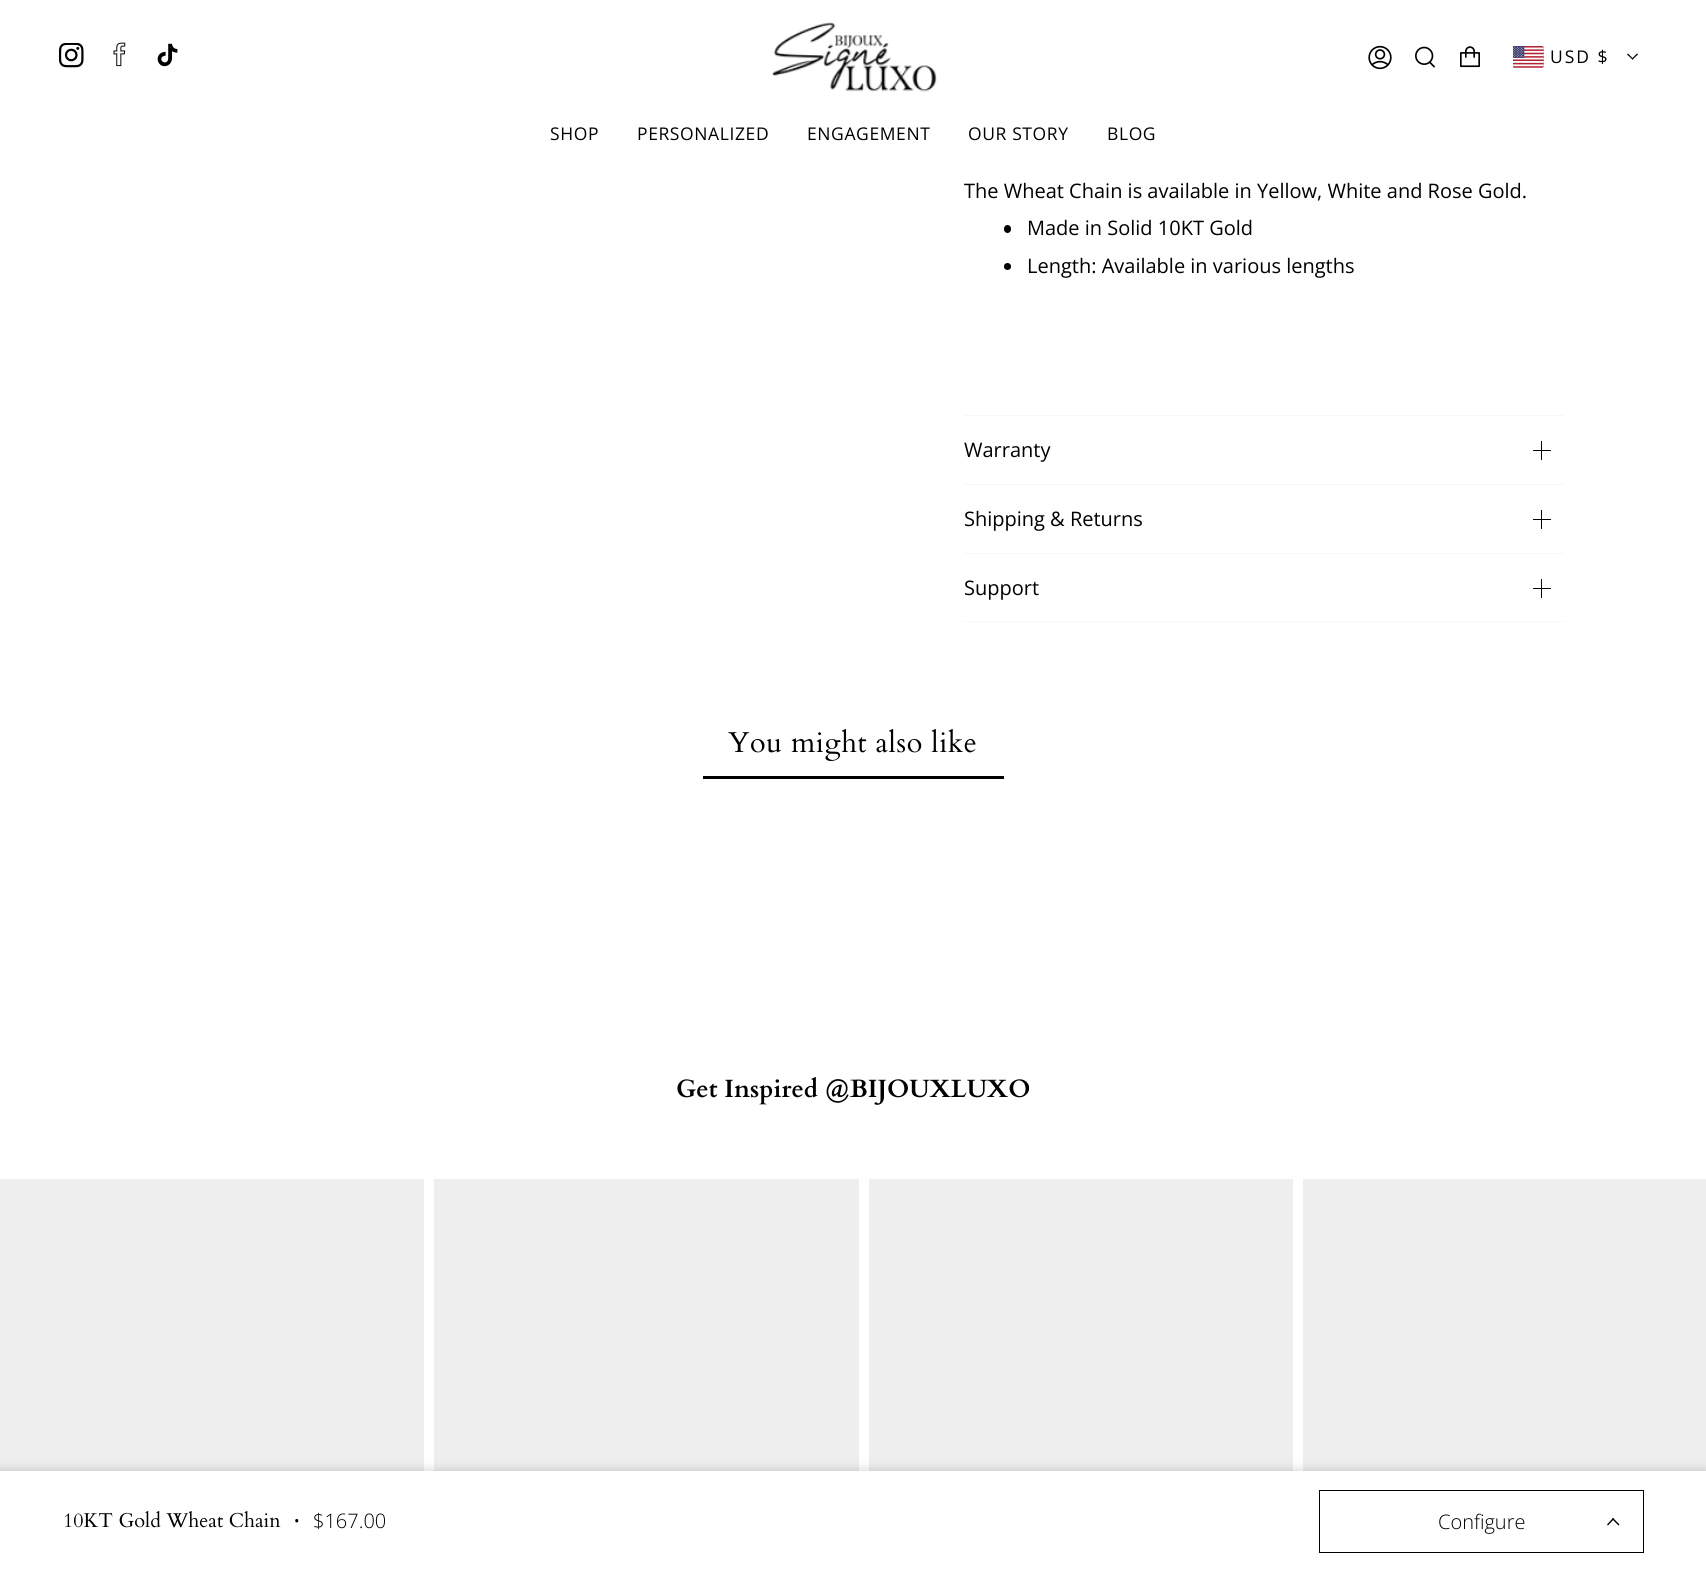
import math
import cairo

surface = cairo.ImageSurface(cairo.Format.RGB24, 1706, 1571)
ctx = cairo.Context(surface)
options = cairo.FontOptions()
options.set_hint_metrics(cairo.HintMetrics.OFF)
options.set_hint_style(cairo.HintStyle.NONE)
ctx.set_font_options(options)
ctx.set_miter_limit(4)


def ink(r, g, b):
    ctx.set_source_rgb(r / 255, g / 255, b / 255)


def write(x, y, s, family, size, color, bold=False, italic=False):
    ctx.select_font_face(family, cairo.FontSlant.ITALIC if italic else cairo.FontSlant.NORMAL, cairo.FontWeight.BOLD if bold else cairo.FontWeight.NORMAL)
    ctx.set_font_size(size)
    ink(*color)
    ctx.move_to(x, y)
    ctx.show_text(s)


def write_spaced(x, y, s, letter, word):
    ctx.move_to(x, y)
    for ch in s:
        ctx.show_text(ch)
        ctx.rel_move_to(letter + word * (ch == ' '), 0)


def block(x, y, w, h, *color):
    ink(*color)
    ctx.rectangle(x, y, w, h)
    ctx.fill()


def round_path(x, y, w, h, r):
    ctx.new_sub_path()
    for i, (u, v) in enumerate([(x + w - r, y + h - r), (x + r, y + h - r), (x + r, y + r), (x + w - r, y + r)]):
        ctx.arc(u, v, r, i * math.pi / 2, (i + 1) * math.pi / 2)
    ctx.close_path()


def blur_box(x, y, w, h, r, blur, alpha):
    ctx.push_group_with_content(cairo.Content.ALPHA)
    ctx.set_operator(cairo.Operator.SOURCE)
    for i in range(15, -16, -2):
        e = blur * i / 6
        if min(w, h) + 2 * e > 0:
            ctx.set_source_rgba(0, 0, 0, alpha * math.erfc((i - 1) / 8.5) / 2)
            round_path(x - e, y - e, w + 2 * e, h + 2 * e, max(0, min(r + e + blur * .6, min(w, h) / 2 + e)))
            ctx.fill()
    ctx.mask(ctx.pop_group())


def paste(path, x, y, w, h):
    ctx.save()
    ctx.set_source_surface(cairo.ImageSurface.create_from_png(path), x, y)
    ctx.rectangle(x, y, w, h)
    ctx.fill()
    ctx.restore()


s1 = dict(family="Open Sans", size=20, color=(0, 0, 0))
s2 = dict(family="Cardo", size=20, color=(0, 0, 0))
s3 = dict(family="Open Sans Light", size=20, color=(0, 0, 0))
s4 = dict(family="Cardo", size=25, color=(0, 0, 0), bold=True)

ink(255, 255, 255)
ctx.paint()
paste("pic1.png", 59, 43, 25, 25)
paste("pic2.png", 113, 42, 13, 25)
paste("pic3.png", 157, 43, 21, 24)
paste("pic4.png", 772, 22, 165, 70)
paste("pic5.png", 1368, 45, 24, 25)
paste("pic6.png", 1415, 46, 20, 22)
paste("pic7.png", 1460, 46, 20, 22)
paste("pic8.png", 1513, 46, 31, 22)
ctx.select_font_face("Open Sans")
ctx.set_font_size(17.5)
ink(0, 0, 0)
write_spaced(1550, 63, "USD $", 2, 0)
ctx.new_path()
ctx.move_to(1631.5, 59)
ctx.line_to(1637, 53.5)
ctx.line_to(1638, 54.5)
ctx.line_to(1632.5, 59.5)
ctx.close_path()
ctx.fill()
ctx.new_path()
ctx.move_to(1627, 54.5)
ctx.line_to(1628, 53.5)
ctx.line_to(1633.5, 59)
ctx.line_to(1632.5, 59.5)
ctx.close_path()
ctx.fill()
write_spaced(550, 140, "SHOP", 0.6, 0)
write_spaced(637, 140, "PERSONALIZED", 0.6, 0)
write_spaced(807, 140, "ENGAGEMENT", 0.6, 0)
write_spaced(968, 140, "OUR STORY", 0.6, 0)
write_spaced(1107, 140, "BLOG", 0.6, 0)
block(964, 621, 600, 1, 247, 247, 247)
write(964, 198, "The Wheat Chain is available in Yellow, White and Rose Gold.", **s1)
round_path(1004, 225, 7, 8, 3.5)
ctx.fill()
write(1027, 235, "Made in Solid 10KT Gold", **s1)
ctx.new_path()
ctx.arc(1007.5, 266.5, 3.5, 0, 2 * math.pi)
ctx.fill()
write(1027, 273, "Length: Available in various lengths", **s1)
block(964, 415, 600, 1, 247, 247, 247)
write(964, 457, "Warranty", **s1)
block(1533, 450, 18, 1, 0, 0, 0)
block(1541, 441, 1, 19, 0, 0, 0)
block(964, 484, 600, 1, 247, 247, 247)
write(964, 526, "Shipping & Returns", **s1)
block(1533, 519, 18, 1, 0, 0, 0)
block(1541, 510, 1, 19, 0, 0, 0)
block(964, 553, 600, 1, 247, 247, 247)
write(964, 595, "Support", **s1)
block(1533, 588, 18, 1, 0, 0, 0)
block(1541, 579, 1, 19, 0, 0, 0)
block(0, 1179, 424, 292, 238, 238, 238)
block(434, 1179, 425, 292, 238, 238, 238)
block(869, 1179, 424, 292, 238, 238, 238)
block(1303, 1179, 403, 292, 238, 238, 238)
ink(0, 0, 0)
blur_box(0, 1471, 1706, 100, 0, 6, 0.2)
block(0, 1471, 1706, 100, 255, 255, 255)
write(63, 1527, "10KT Gold Wheat Chain", **s2)
write(293, 1528, "•", **s3)
write(313, 1528, "$167.00", **s3)
ctx.rectangle(1319.5, 1490.5, 324, 62)
ctx.set_line_width(1)
ctx.stroke()
write(1438, 1529, "Configure", **s3)
ctx.new_path()
ctx.move_to(1614, 1519)
ctx.line_to(1608, 1525.5)
ctx.line_to(1607, 1524.5)
ctx.line_to(1613, 1518)
ctx.close_path()
ctx.fill()
ctx.new_path()
ctx.move_to(1619.5, 1524.5)
ctx.line_to(1618.5, 1525.5)
ctx.line_to(1612, 1519)
ctx.line_to(1613, 1518)
ctx.close_path()
ctx.fill()
block(703, 776, 301, 3, 0, 0, 0)
ctx.select_font_face("Cardo")
ctx.set_font_size(28.75)
write_spaced(728, 752, "You might also like", 0.6, 0)
write(676, 1097, "Get Inspired @BIJOUXLUXO", **s4)
surface.write_to_png("screenshot.png")
